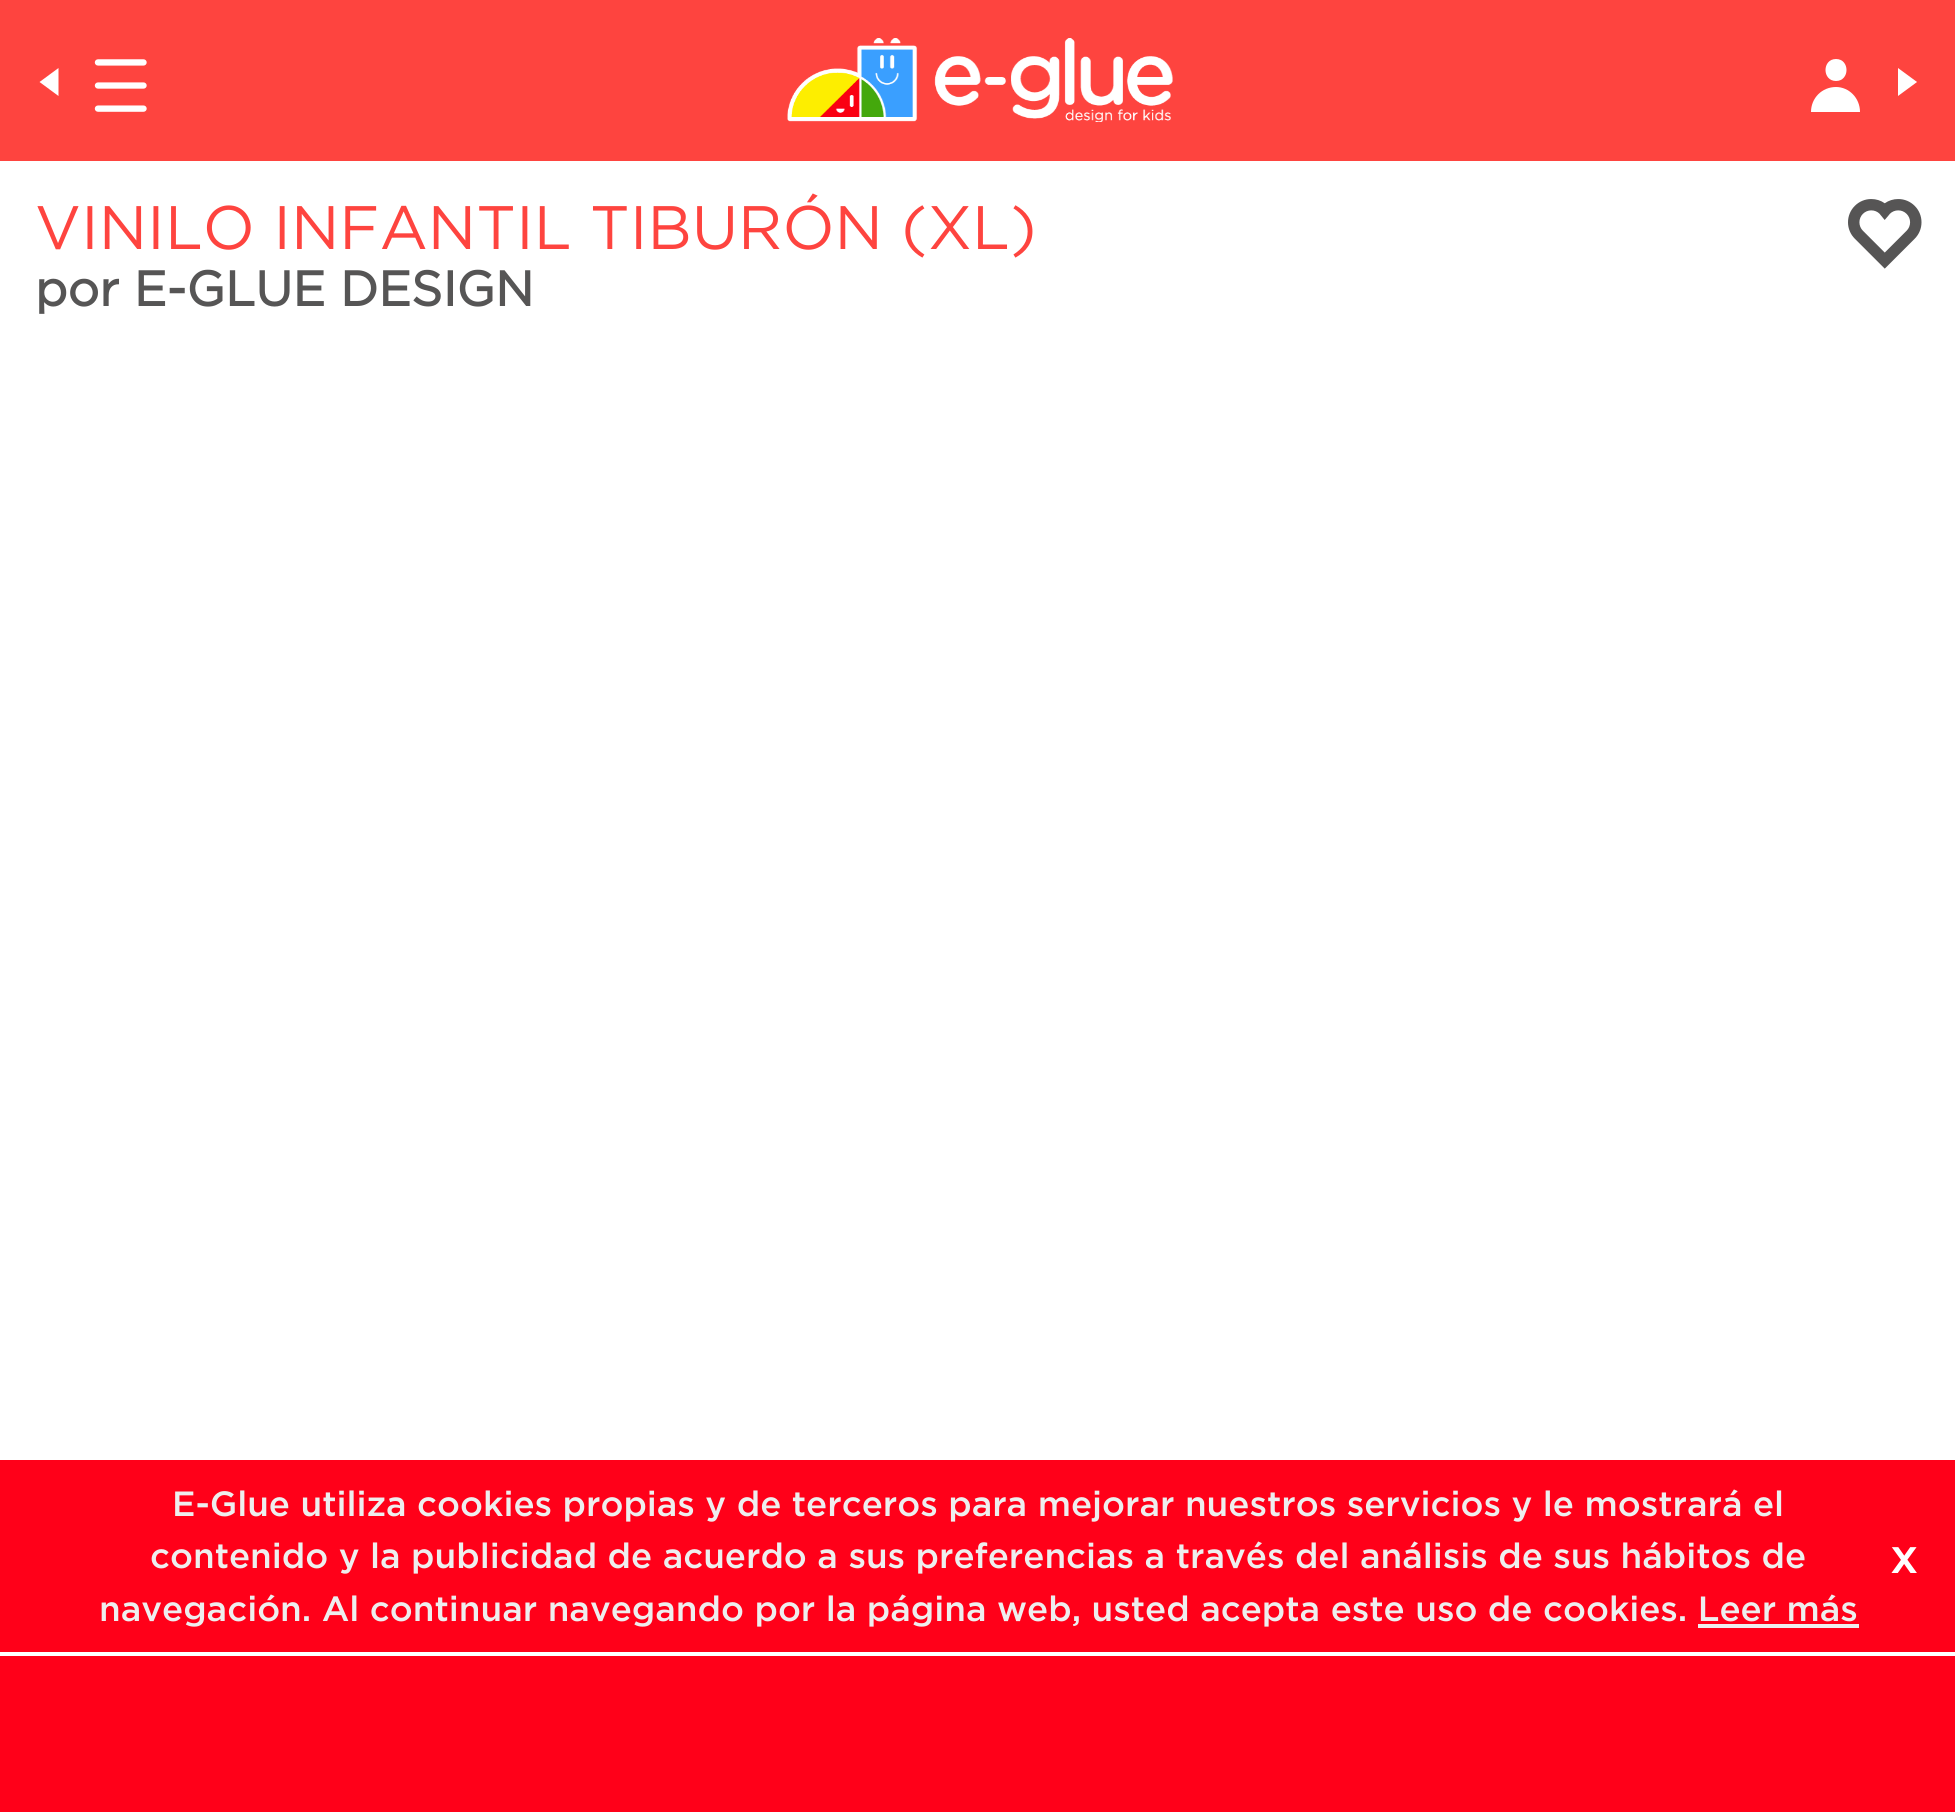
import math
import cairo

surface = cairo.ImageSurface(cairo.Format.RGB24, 1955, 1812)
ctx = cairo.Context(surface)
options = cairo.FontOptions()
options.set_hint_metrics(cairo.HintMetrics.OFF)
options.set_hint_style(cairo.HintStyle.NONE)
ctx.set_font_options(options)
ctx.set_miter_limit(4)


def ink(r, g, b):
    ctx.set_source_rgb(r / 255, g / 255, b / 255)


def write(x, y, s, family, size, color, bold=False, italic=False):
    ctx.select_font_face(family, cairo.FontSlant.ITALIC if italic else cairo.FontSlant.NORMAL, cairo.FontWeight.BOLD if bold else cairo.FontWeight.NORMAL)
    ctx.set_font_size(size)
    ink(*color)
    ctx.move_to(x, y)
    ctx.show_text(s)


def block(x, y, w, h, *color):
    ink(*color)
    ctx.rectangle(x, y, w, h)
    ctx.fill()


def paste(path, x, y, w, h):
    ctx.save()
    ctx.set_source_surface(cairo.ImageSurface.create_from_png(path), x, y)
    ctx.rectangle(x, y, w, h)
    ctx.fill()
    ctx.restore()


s1 = dict(family="Gotham", size=61.25, color=(254, 68, 63))
s2 = dict(family="Gotham", size=49, color=(86, 85, 85), bold=True)
s3 = dict(family="Gotham Medium", size=35, color=(238, 238, 238))
s4 = dict(family="Gotham Medium", size=49, color=(255, 255, 255))

ink(255, 255, 255)
ctx.paint()
block(0, 0, 1955, 161, 254, 68, 63)
ink(255, 255, 255)
ctx.new_path()
ctx.move_to(58.5, 68)
ctx.line_to(39.5, 82)
ctx.line_to(58.5, 96)
ctx.close_path()
ctx.fill()
paste("pic1.png", 94, 59, 53, 53)
paste("pic2.png", 787, 38, 386, 84)
ctx.new_path()
ctx.move_to(1836, 81)
ctx.curve_to(1850, 81, 1850, 59, 1836, 59)
ctx.curve_to(1822, 59, 1822, 81, 1836, 81)
ctx.close_path()
ctx.move_to(1836, 87)
ctx.curve_to(1822, 87, 1811, 98, 1811, 112)
ctx.line_to(1860, 112)
ctx.curve_to(1860, 98, 1849, 87, 1836, 87)
ctx.close_path()
ctx.fill()
ctx.new_path()
ctx.move_to(1898, 68)
ctx.line_to(1917, 82)
ctx.line_to(1898, 96)
ctx.close_path()
ctx.fill()
block(0, 1656, 1955, 156, 255, 0, 25)
write(35, 249, "VINILO INFANTIL TIBURÓN (XL)", **s1)
paste("pic3.png", 1848, 199, 74, 70)
write(35, 306, "por E-GLUE DESIGN", **s2)
block(0, 1460, 1955, 192, 255, 0, 25)
write(172, 1516, "E-Glue utiliza cookies propias y de terceros para mejorar nuestros servicios y le mostrará el", **s3)
write(150, 1568, "contenido y la publicidad de acuerdo a sus preferencias a través del análisis de sus hábitos de", **s3)
write(99, 1621, "navegación. Al continuar navegando por la página web, usted acepta este uso de cookies. Leer más", **s3)
block(1698, 1624, 161, 4, 238, 238, 238)
write(1890, 1573, "x", **s4)
surface.write_to_png("screenshot.png")
